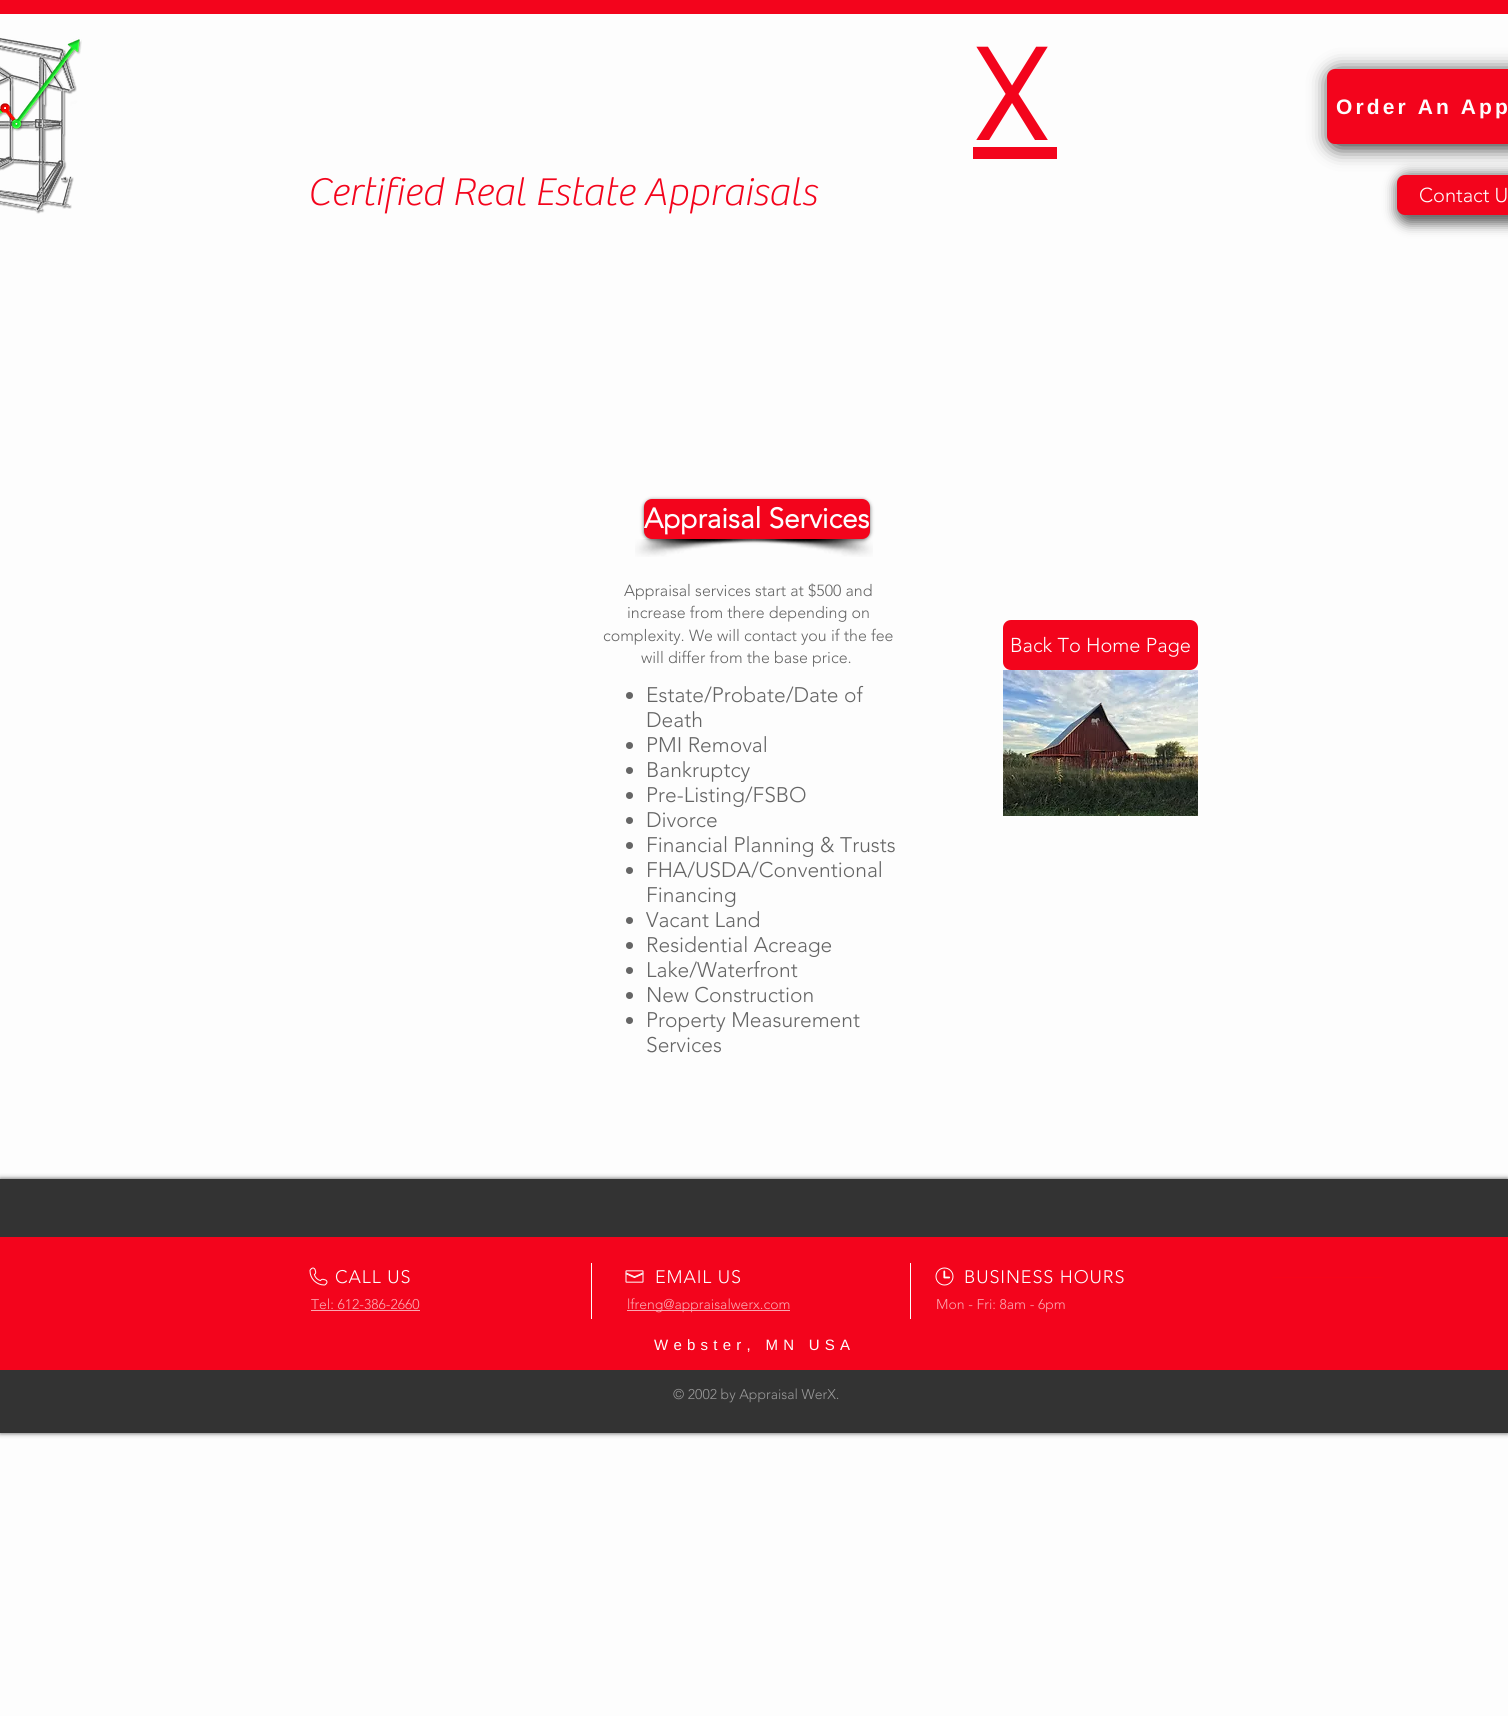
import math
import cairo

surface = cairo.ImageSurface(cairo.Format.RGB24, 1508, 1716)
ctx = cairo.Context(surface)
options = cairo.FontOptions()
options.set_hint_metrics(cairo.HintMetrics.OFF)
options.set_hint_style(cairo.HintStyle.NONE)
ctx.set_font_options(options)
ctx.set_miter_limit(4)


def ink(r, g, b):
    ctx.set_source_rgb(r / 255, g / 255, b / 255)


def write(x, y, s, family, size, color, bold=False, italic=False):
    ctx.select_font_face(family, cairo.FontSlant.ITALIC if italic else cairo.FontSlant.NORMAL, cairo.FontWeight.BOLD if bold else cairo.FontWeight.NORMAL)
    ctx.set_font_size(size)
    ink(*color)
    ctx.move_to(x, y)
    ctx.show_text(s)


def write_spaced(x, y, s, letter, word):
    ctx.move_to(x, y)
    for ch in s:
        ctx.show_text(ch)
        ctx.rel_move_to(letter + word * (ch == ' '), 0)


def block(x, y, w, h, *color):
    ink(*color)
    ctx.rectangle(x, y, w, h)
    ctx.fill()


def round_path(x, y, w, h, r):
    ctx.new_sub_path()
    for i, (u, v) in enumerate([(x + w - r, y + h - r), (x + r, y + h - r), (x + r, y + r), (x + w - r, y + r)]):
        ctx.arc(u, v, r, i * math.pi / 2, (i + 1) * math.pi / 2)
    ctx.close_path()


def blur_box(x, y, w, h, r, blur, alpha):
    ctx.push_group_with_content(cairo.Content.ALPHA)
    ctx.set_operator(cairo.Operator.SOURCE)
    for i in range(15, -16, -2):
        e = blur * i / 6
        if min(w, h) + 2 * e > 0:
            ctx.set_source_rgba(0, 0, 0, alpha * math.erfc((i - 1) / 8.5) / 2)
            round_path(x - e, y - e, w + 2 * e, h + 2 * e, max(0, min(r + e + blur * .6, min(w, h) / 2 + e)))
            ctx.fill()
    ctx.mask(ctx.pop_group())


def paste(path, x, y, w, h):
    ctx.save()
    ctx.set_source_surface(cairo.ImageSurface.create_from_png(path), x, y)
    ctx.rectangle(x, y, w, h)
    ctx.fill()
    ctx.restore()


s1 = dict(family="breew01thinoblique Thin", size=40, color=(243, 4, 28))
s2 = dict(family="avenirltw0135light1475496 Light", size=20, color=(253, 253, 253))
s3 = dict(family="avenirltw0135light1475496", size=28, color=(253, 253, 253), bold=True)
s4 = dict(family="avenirltw0135light1475496 Light", size=16, color=(101, 101, 101))
s5 = dict(family="avenirltw0135light1475496 Light", size=21, color=(101, 101, 101))
s6 = dict(family="avenirltw0135light1475496 Light", size=14, color=(251, 169, 177))
s7 = dict(family="avenirltw0135light1475496 Light", size=14, color=(152, 152, 152))

ink(253, 253, 253)
ctx.paint()
block(0, 0, 1508, 14, 243, 4, 28)
paste("pic1.png", 0, 37, 82, 177)
ctx.select_font_face("Nobile")
ctx.set_font_size(121)
write_spaced(973, 140, "X", 6, 0)
block(973, 147, 84, 12, 243, 4, 28)
ink(51, 51, 51)
blur_box(1329, 71, 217, 77, 9, 9.5, 1)
ink(243, 4, 28)
round_path(1327, 69, 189, 75, 8)
ctx.fill()
ctx.select_font_face("Liberation Sans", cairo.FontSlant.NORMAL, cairo.FontWeight.BOLD)
ctx.set_font_size(21)
ink(253, 253, 253)
write_spaced(1336, 114, "Order An App", 3.1, 0)
write(307, 205, "Certified Real Estate Appraisals", **s1)
ink(0, 0, 0)
blur_box(1396, 174, 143, 50, 13, 6, 0.6)
ink(243, 4, 28)
round_path(1397, 175, 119, 40, 8)
ctx.fill()
write(1419, 202, "Contact U", **s2)
paste("pic2.png", 635, 539, 154, 18)
paste("pic3.png", 734, 539, 139, 18)
ink(0, 0, 0)
blur_box(644, 500, 226, 40, 8, 2, 0.6)
ink(243, 4, 28)
round_path(644, 499, 226, 40, 8)
ctx.fill()
write(644, 528, "Appraisal Services", **s3)
write(624, 596, "Appraisal services start at $500 and", **s4)
write(627, 618, "increase from there depending on", **s4)
write(603, 641, "complexity. We will contact you if the fee", **s4)
write(641, 663, "will differ from the base price.", **s4)
ink(243, 4, 28)
round_path(1003, 620, 195, 50, 8)
ctx.fill()
write(1010, 652, "Back To Home Page", **s2)
ink(101, 101, 101)
ctx.new_path()
ctx.arc(629.5, 695.5, 3.5, 0, 2 * math.pi)
ctx.fill()
write(646, 702, "Estate/Probate/Date of", **s5)
write(646, 727, "Death", **s5)
ctx.new_path()
ctx.arc(629.5, 745.5, 3.5, 0, 2 * math.pi)
ctx.fill()
write(646, 752, "PMI Removal", **s5)
ctx.new_path()
ctx.arc(629.5, 770.5, 3.5, 0, 2 * math.pi)
ctx.fill()
write(646, 777, "Bankruptcy", **s5)
ctx.new_path()
ctx.arc(629.5, 795.5, 3.5, 0, 2 * math.pi)
ctx.fill()
write(646, 802, "Pre-Listing/FSBO", **s5)
ctx.new_path()
ctx.arc(629.5, 820.5, 3.5, 0, 2 * math.pi)
ctx.fill()
write(646, 827, "Divorce", **s5)
ctx.new_path()
ctx.arc(629.5, 845.5, 3.5, 0, 2 * math.pi)
ctx.fill()
write(646, 852, "Financial Planning & Trusts", **s5)
ctx.new_path()
ctx.arc(629.5, 870.5, 3.5, 0, 2 * math.pi)
ctx.fill()
write(646, 877, "FHA/USDA/Conventional", **s5)
write(646, 902, "Financing", **s5)
ctx.new_path()
ctx.arc(629.5, 920.5, 3.5, 0, 2 * math.pi)
ctx.fill()
write(646, 927, "Vacant Land", **s5)
ctx.new_path()
ctx.arc(629.5, 945.5, 3.5, 0, 2 * math.pi)
ctx.fill()
write(646, 952, "Residential Acreage", **s5)
ctx.new_path()
ctx.arc(629.5, 970.5, 3.5, 0, 2 * math.pi)
ctx.fill()
write(646, 977, "Lake/Waterfront", **s5)
ctx.new_path()
ctx.arc(629.5, 995.5, 3.5, 0, 2 * math.pi)
ctx.fill()
write(646, 1002, "New Construction", **s5)
ctx.new_path()
ctx.arc(629.5, 1020.5, 3.5, 0, 2 * math.pi)
ctx.fill()
write(646, 1027, "Property Measurement", **s5)
write(646, 1052, "Services", **s5)
paste("pic4.png", 1003, 670, 195, 146)
ink(0, 0, 0)
blur_box(0, 1179, 1508, 254, 0, 2.5, 0.7)
block(0, 1179, 1508, 254, 51, 51, 51)
block(0, 1237, 1508, 133, 243, 4, 28)
paste("pic5.png", 309, 1267, 19, 19)
ctx.set_font_size(18)
ink(253, 253, 253)
write_spaced(335, 1283, "CALL US", 0.9, 0)
block(591, 1263, 1, 56, 253, 253, 253)
paste("pic6.png", 625, 1270, 19, 13)
write_spaced(655, 1283, "EMAIL US", 0.9, 0)
block(910, 1263, 1, 56, 253, 253, 253)
paste("pic7.png", 935, 1267, 19, 19)
write_spaced(964, 1283, "BUSINESS HOURS", 0.9, 0)
write(311, 1309, "Tel: 612-386-2660", **s6)
block(311, 1310, 109, 1, 251, 169, 177)
block(627, 1310, 163, 1, 251, 169, 177)
write(627, 1309, "lfreng@appraisalwerx.com", **s6)
write(936, 1309, "Mon - Fri: 8am - 6pm", **s6)
ctx.select_font_face("Liberation Sans")
ctx.set_font_size(15)
ink(253, 253, 253)
write_spaced(654, 1350, "Webster, MN USA", 5.25, 0)
block(1272, 1277, 111, 1, 246, 4, 25)
write(673, 1399, "© 2002 by Appraisal WerX.", **s7)
surface.write_to_png("screenshot.png")
